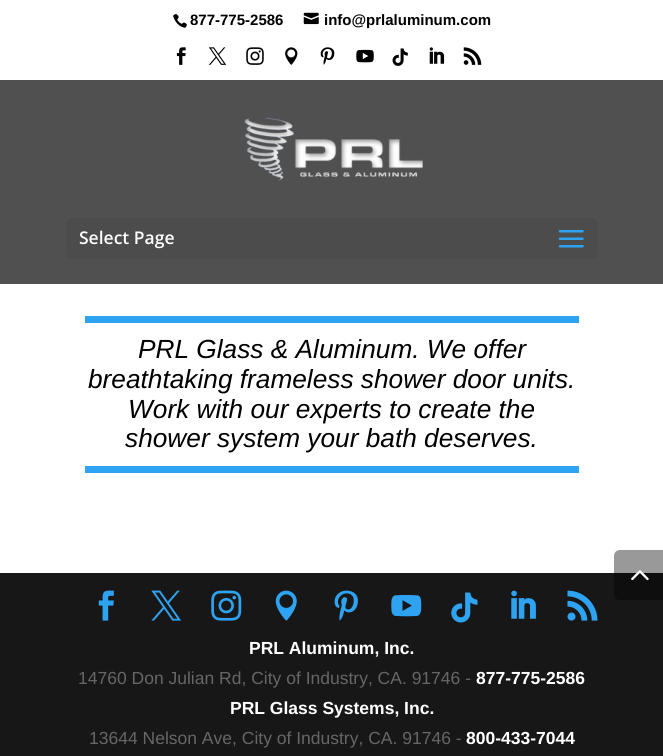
import math
import cairo

surface = cairo.ImageSurface(cairo.Format.RGB24, 663, 756)
ctx = cairo.Context(surface)
options = cairo.FontOptions()
options.set_hint_metrics(cairo.HintMetrics.OFF)
options.set_hint_style(cairo.HintStyle.NONE)
ctx.set_font_options(options)
ctx.set_miter_limit(4)


def ink(r, g, b):
    ctx.set_source_rgb(r / 255, g / 255, b / 255)


def write(x, y, s, family, size, color, bold=False, italic=False):
    ctx.select_font_face(family, cairo.FontSlant.ITALIC if italic else cairo.FontSlant.NORMAL, cairo.FontWeight.BOLD if bold else cairo.FontWeight.NORMAL)
    ctx.set_font_size(size)
    ink(*color)
    ctx.move_to(x, y)
    ctx.show_text(s)


def block(x, y, w, h, *color):
    ink(*color)
    ctx.rectangle(x, y, w, h)
    ctx.fill()


def round_path(x, y, w, h, r):
    ctx.new_sub_path()
    for i, (u, v) in enumerate([(x + w - r, y + h - r), (x + r, y + h - r), (x + r, y + r), (x + w - r, y + r)]):
        ctx.arc(u, v, r, i * math.pi / 2, (i + 1) * math.pi / 2)
    ctx.close_path()


def paste(path, x, y, w, h):
    ctx.save()
    ctx.set_source_surface(cairo.ImageSurface.create_from_png(path), x, y)
    ctx.rectangle(x, y, w, h)
    ctx.fill()
    ctx.restore()


s1 = dict(family="Liberation Sans", size=15, color=(0, 0, 0), bold=True)
s2 = dict(family="Open Sans SemiBold", size=17.5, color=(255, 255, 255))
s3 = dict(family="Liberation Sans", size=26.25, color=(0, 0, 0), italic=True)
s4 = dict(family="Liberation Sans", size=17.5, color=(255, 255, 255), bold=True)
s5 = dict(family="Liberation Sans", size=17.5, color=(102, 102, 102))

ink(255, 255, 255)
ctx.paint()
paste("pic1.png", 173, 14, 14, 14)
write(190, 25, "877-775-2586", **s1)
paste("pic2.png", 303, 12, 16, 13)
write(324, 25, "info@prlaluminum.com", **s1)
paste("pic3.png", 176, 47, 10, 18)
paste("pic4.png", 208, 47, 19, 18)
paste("pic5.png", 246, 47, 18, 18)
paste("pic6.png", 285, 47, 13, 18)
paste("pic7.png", 320, 47, 15, 18)
paste("pic8.png", 356, 49, 18, 14)
paste("pic9.png", 392, 48, 16, 18)
paste("pic10.png", 429, 47, 16, 17)
paste("pic11.png", 463, 47, 19, 18)
block(0, 80, 663, 204, 80, 80, 80)
paste("pic12.png", 244, 117, 179, 64)
ink(76, 76, 76)
round_path(66, 218, 532, 41, 6)
ctx.fill()
write(79, 244, "Select Page", **s2)
paste("pic13.png", 558, 230, 26, 18)
block(85, 316, 494, 7, 46, 163, 242)
block(85, 466, 494, 7, 46, 163, 242)
write(138, 358, "PRL Glass & Aluminum. We offer", **s3)
write(88, 388, "breathtaking frameless shower door units.", **s3)
write(128, 418, "Work with our experts to create the", **s3)
write(125, 447, "shower system your bath deserves.", **s3)
block(0, 573, 663, 183, 23, 23, 23)
ctx.set_source_rgba(0, 0, 0, 0.4)
ctx.new_path()
ctx.move_to(620, 550)
ctx.line_to(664, 550)
ctx.line_to(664, 600)
ctx.line_to(620, 600)
ctx.curve_to(616.5, 600, 614, 597.5, 614, 594)
ctx.line_to(614, 556)
ctx.curve_to(614, 552.5, 616.5, 550, 620, 550)
ctx.close_path()
ctx.fill()
paste("pic14.png", 631, 570, 18, 11)
paste("pic15.png", 98, 590, 16, 31)
paste("pic16.png", 151, 590, 30, 31)
paste("pic17.png", 211, 590, 31, 31)
paste("pic18.png", 275, 590, 22, 31)
paste("pic19.png", 334, 590, 24, 31)
paste("pic20.png", 391, 595, 31, 22)
paste("pic21.png", 451, 592, 27, 31)
paste("pic22.png", 511, 590, 25, 29)
paste("pic23.png", 567, 590, 31, 31)
write(249, 654, "PRL Aluminum, Inc.", **s4)
write(78, 684, "14760 Don Julian Rd, City of Industry, CA. 91746 -", **s5)
write(476, 684, "877-775-2586", **s4)
write(230, 714, "PRL Glass Systems, Inc.", **s4)
write(89, 744, "13644 Nelson Ave, City of Industry, CA. 91746 -", **s5)
write(466, 744, "800-433-7044", **s4)
surface.write_to_png("screenshot.png")
